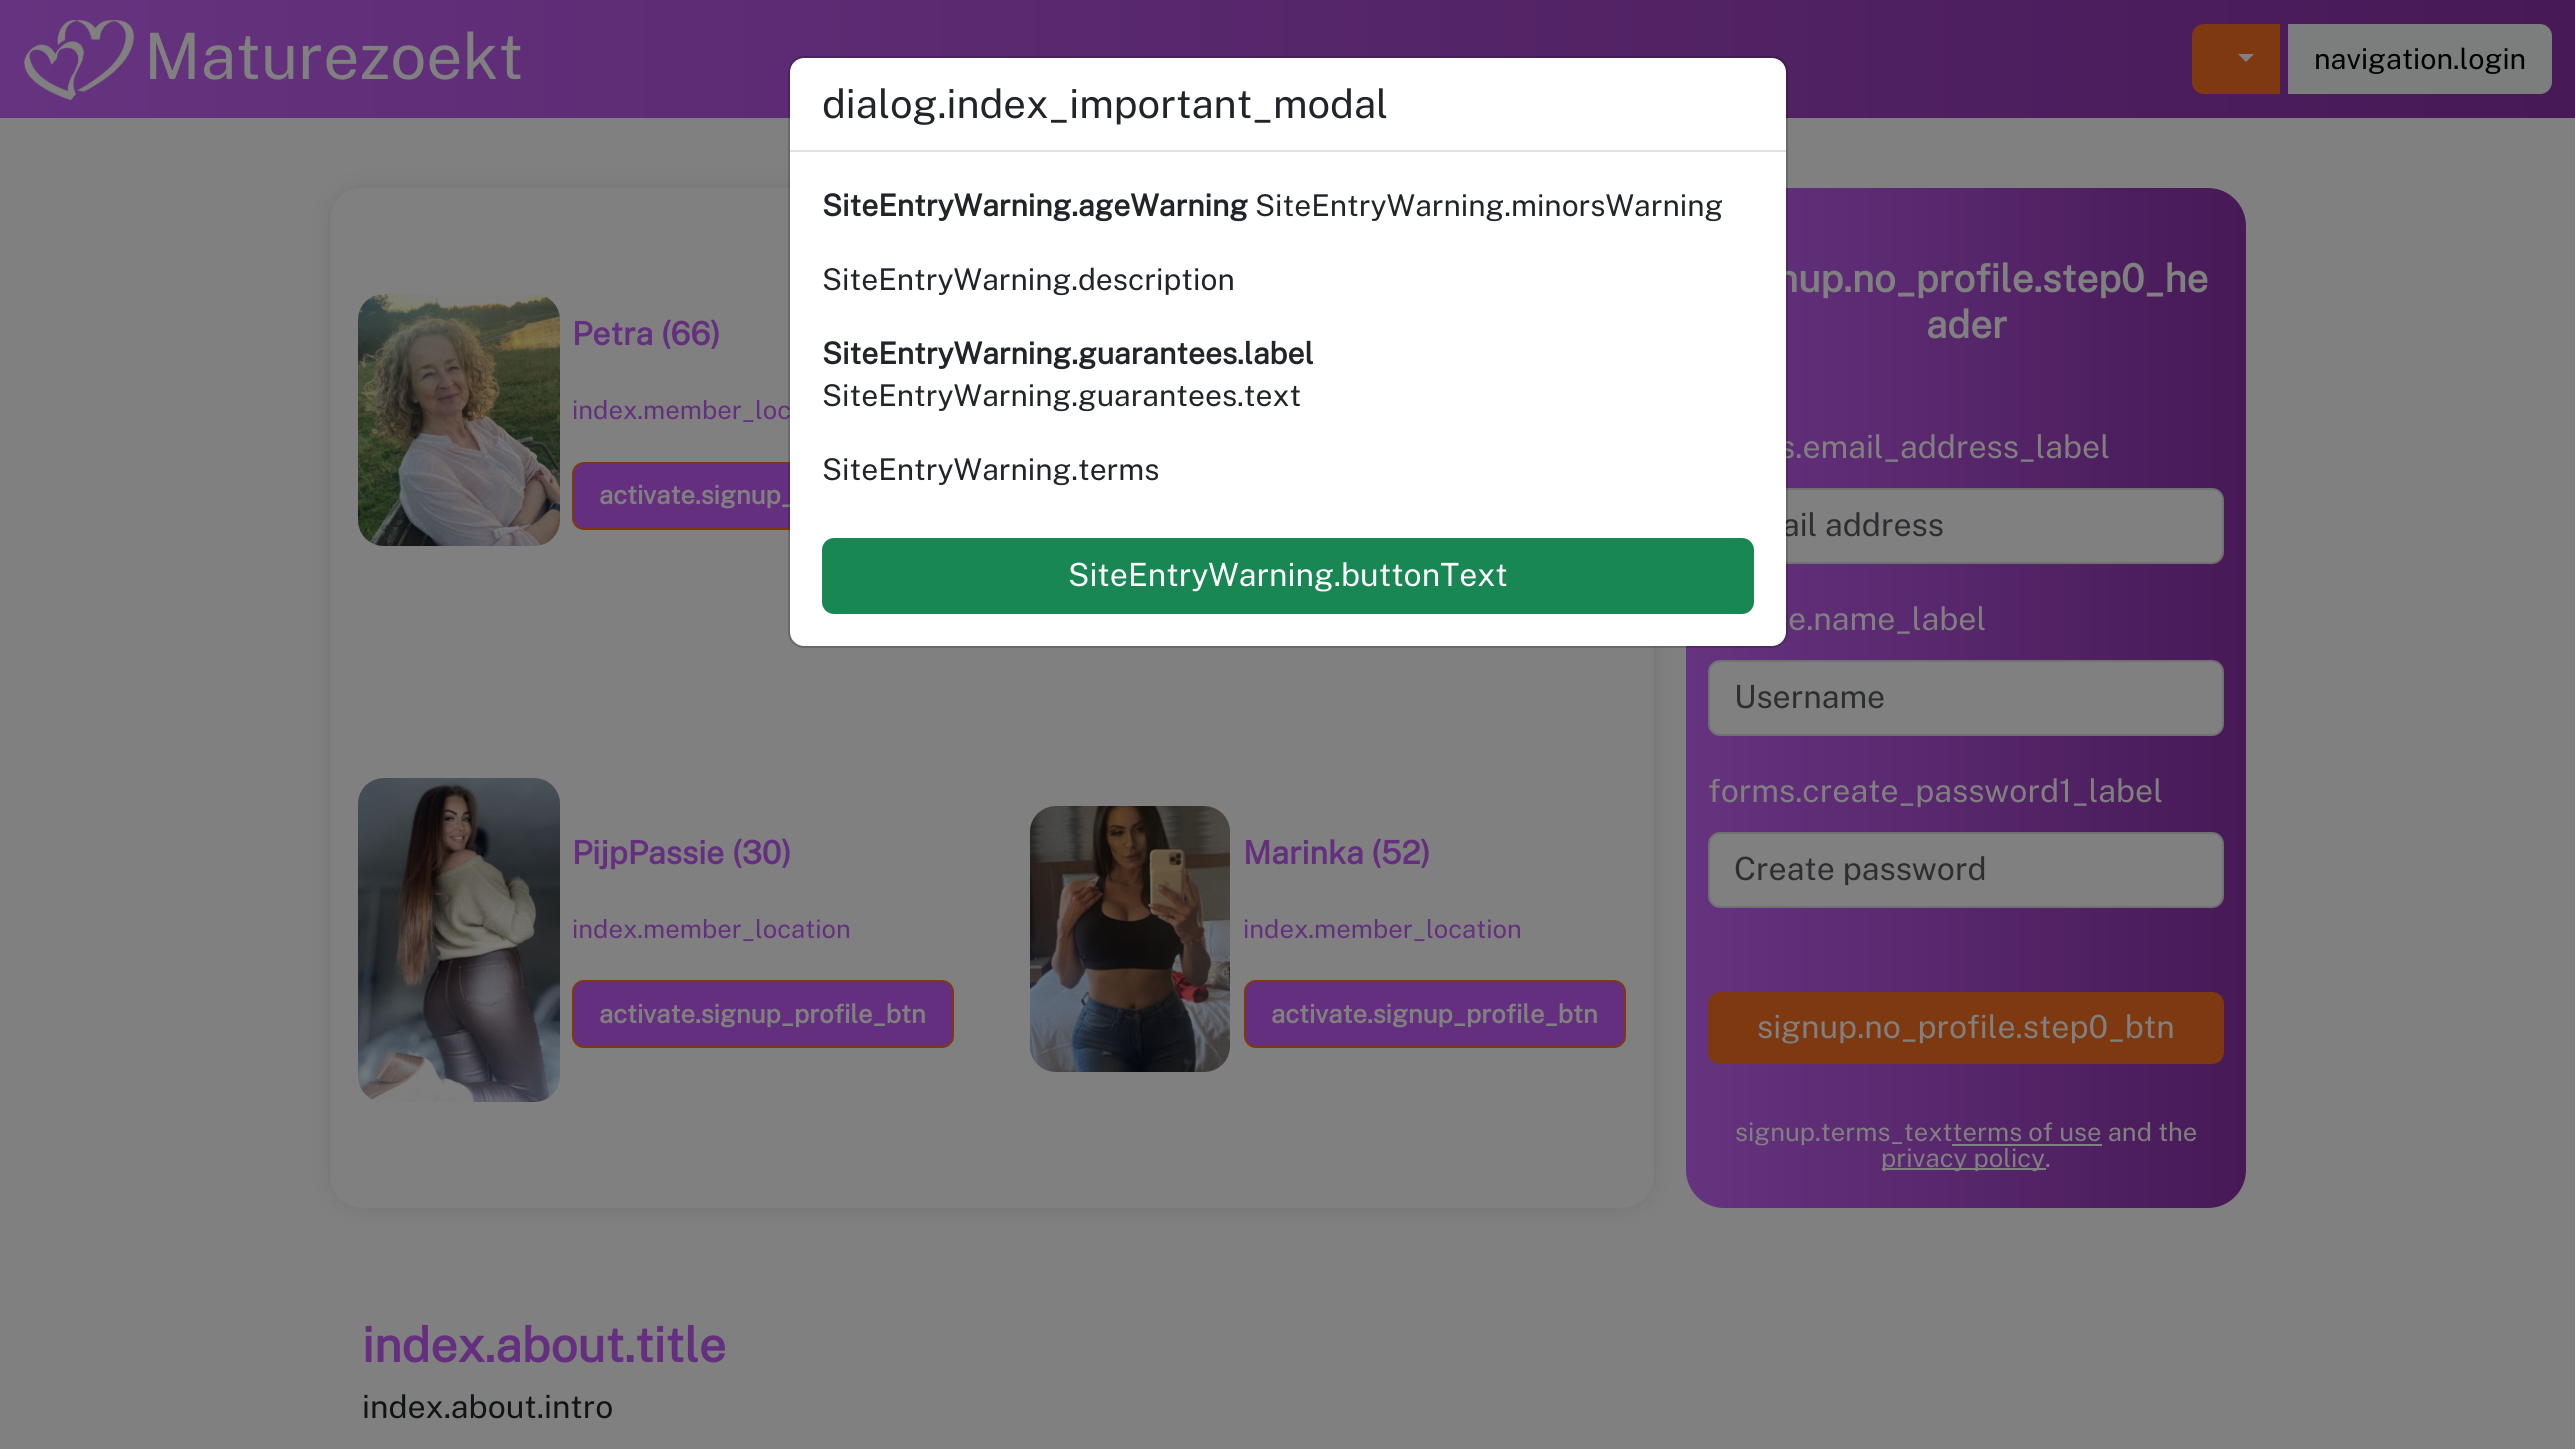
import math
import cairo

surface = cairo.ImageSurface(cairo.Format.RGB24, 2575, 1449)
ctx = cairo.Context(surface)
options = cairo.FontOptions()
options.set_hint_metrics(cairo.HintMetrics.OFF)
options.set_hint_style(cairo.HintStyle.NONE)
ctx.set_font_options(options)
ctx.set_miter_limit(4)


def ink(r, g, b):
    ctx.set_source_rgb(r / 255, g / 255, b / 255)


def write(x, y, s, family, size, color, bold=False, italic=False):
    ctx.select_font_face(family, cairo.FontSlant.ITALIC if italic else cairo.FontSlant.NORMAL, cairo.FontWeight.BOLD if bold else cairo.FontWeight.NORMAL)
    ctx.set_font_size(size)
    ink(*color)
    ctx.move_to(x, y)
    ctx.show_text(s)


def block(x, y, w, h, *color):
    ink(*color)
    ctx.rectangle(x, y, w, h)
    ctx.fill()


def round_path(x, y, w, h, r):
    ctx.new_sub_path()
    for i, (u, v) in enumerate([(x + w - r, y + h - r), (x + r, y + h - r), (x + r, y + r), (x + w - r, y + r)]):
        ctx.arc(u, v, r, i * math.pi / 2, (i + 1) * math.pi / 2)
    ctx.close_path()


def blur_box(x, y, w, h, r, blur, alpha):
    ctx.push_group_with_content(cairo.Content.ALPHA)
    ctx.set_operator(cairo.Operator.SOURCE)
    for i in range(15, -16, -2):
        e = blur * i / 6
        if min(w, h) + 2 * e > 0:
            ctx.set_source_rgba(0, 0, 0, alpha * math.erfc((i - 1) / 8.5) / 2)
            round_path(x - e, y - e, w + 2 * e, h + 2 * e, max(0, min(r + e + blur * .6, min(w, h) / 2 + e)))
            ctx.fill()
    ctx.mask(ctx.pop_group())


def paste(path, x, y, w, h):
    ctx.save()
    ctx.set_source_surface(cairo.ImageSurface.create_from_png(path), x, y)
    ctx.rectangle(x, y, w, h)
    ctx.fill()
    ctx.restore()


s1 = dict(family="Public Sans Thin", size=64, color=(128, 128, 128))
s2 = dict(family="Public Sans Thin", size=28.75, color=(0, 0, 0))
s3 = dict(family="Public Sans", size=32, color=(100, 47, 126), bold=True)
s4 = dict(family="Public Sans Thin", size=25.6, color=(100, 47, 126))
s5 = dict(family="Public Sans", size=25.6, color=(128, 128, 128), bold=True)
s6 = dict(family="Public Sans", size=38.4, color=(128, 128, 128), bold=True)
s7 = dict(family="Public Sans Thin", size=32, color=(128, 128, 128))
s8 = dict(family="Public Sans Thin", size=32, color=(45, 46, 48))
s9 = dict(family="Public Sans Thin", size=25.6, color=(128, 128, 128))
s10 = dict(family="Public Sans", size=48, color=(100, 47, 126), bold=True)
s11 = dict(family="Public Sans Thin", size=32, color=(17, 19, 21))
s12 = dict(family="Public Sans Thin", size=40, color=(33, 37, 41))
s13 = dict(family="Public Sans", size=30, color=(33, 37, 41), bold=True)
s14 = dict(family="Public Sans Thin", size=30, color=(33, 37, 41))
s15 = dict(family="Public Sans Thin", size=32, color=(255, 255, 255))

ink(128, 128, 128)
ctx.paint()
gradient = cairo.LinearGradient(0, 59, 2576, 59)
gradient.add_color_stop_rgba(0, 0.4, 0.2, 0.502, 1)
gradient.add_color_stop_rgba(1, 0.278, 0.098, 0.337, 1)
ctx.set_source(gradient)
ctx.rectangle(0, 0, 2575, 118)
ctx.fill()
paste("pic1.png", 24, 20, 110, 80)
write(144, 79, "Maturezoekt", **s1)
ink(126, 57, 17)
ctx.new_path()
ctx.move_to(2204, 25)
ctx.line_to(2279, 25)
ctx.line_to(2279, 93)
ctx.line_to(2204, 93)
ctx.curve_to(2198, 93, 2193, 88, 2193, 82)
ctx.line_to(2193, 36)
ctx.curve_to(2193, 30, 2198, 25, 2204, 25)
ctx.close_path()
ctx.fill_preserve()
ctx.stroke()
ink(128, 128, 128)
ctx.new_path()
ctx.move_to(2238, 54)
ctx.line_to(2254, 54)
ctx.line_to(2246, 62)
ctx.close_path()
ctx.fill()
ink(124, 125, 125)
ctx.new_path()
ctx.move_to(2289, 25)
ctx.line_to(2540, 25)
ctx.curve_to(2546, 25, 2551, 30, 2551, 36)
ctx.line_to(2551, 82)
ctx.curve_to(2551, 88, 2546, 93, 2540, 93)
ctx.line_to(2289, 93)
ctx.close_path()
ctx.fill_preserve()
ctx.stroke()
write(2314, 69, "navigation.login", **s2)
ink(0, 0, 0)
blur_box(330, 188, 1324, 1020, 32, 10, 0.1)
ink(128, 128, 128)
round_path(330, 188, 1324, 1020, 32)
ctx.fill()
paste("pic2.png", 358, 294, 202, 252)
write(572, 345, "Petra (66)", **s3)
write(572, 419, "index.member_loc", **s4)
round_path(573, 463, 380, 66, 11)
ctx.fill_preserve()
ink(126, 57, 17)
ctx.stroke()
write(599, 504, "activate.signup_", **s5)
paste("pic3.png", 358, 778, 202, 324)
write(572, 864, "PijpPassie (30)", **s3)
write(572, 938, "index.member_location", **s4)
round_path(573, 981, 380, 66, 11)
ctx.fill_preserve()
ink(126, 57, 17)
ctx.stroke()
write(599, 1023, "activate.signup_profile_btn", **s5)
paste("pic4.png", 1030, 806, 200, 266)
write(1243, 864, "Marinka (52)", **s3)
write(1243, 938, "index.member_location", **s4)
round_path(1245, 981, 380, 66, 11)
ctx.fill_preserve()
ink(126, 57, 17)
ctx.stroke()
write(1271, 1023, "activate.signup_profile_btn", **s5)
gradient = cairo.LinearGradient(1686, 698, 2246, 698)
gradient.add_color_stop_rgba(0, 0.4, 0.2, 0.502, 1)
gradient.add_color_stop_rgba(1, 0.278, 0.098, 0.337, 1)
ctx.set_source(gradient)
round_path(1686, 188, 560, 1020, 38)
ctx.fill()
write(1776, 292, "nup.no_profile.step0_he", **s6)
write(1926, 338, "ader", **s6)
write(1779, 458, "s.email_address_label", **s7)
round_path(1709, 489, 514, 74, 11)
ctx.fill_preserve()
ink(111, 113, 115)
ctx.stroke()
write(1782, 536, "ail address", **s8)
write(1788, 630, "e.name_label", **s7)
round_path(1709, 661, 514, 74, 11)
ctx.fill_preserve()
ink(111, 113, 115)
ctx.stroke()
write(1734, 708, "Username", **s8)
write(1708, 802, "forms.create_password1_label", **s7)
round_path(1709, 833, 514, 74, 11)
ctx.fill_preserve()
ink(111, 113, 115)
ctx.stroke()
write(1734, 880, "Create password", **s8)
ink(126, 57, 17)
round_path(1708, 992, 516, 72, 12)
ctx.fill()
write(1757, 1038, "signup.no_profile.step0_btn", **s7)
write(1735, 1141, "signup.terms_textterms of use and the", **s9)
block(1952, 1144, 150, 2, 128, 128, 128)
block(1882, 1168, 164, 2, 128, 128, 128)
write(1881, 1167, "privacy policy.", **s9)
write(362, 1362, "index.about.title", **s10)
write(362, 1418, "index.about.intro", **s11)
ink(255, 255, 255)
round_path(790, 58, 996, 588, 14)
ctx.fill()
round_path(789, 57, 998, 590, 15)
ctx.set_source_rgba(0, 0, 0, 0.18)
ctx.stroke()
block(790, 150, 996, 2, 222, 226, 230)
write(822, 118, "dialog.index_important_modal", **s12)
write(822, 216, "SiteEntryWarning.ageWarning", **s13)
write(1255, 216, "SiteEntryWarning.minorsWarning", **s14)
write(822, 290, "SiteEntryWarning.description", **s14)
write(822, 364, "SiteEntryWarning.guarantees.label", **s13)
write(822, 406, "SiteEntryWarning.guarantees.text", **s14)
write(822, 480, "SiteEntryWarning.terms", **s14)
ink(25, 135, 84)
round_path(823, 539, 930, 74, 11)
ctx.fill_preserve()
ctx.stroke()
write(1068, 586, "SiteEntryWarning.buttonText", **s15)
surface.write_to_png("screenshot.png")
